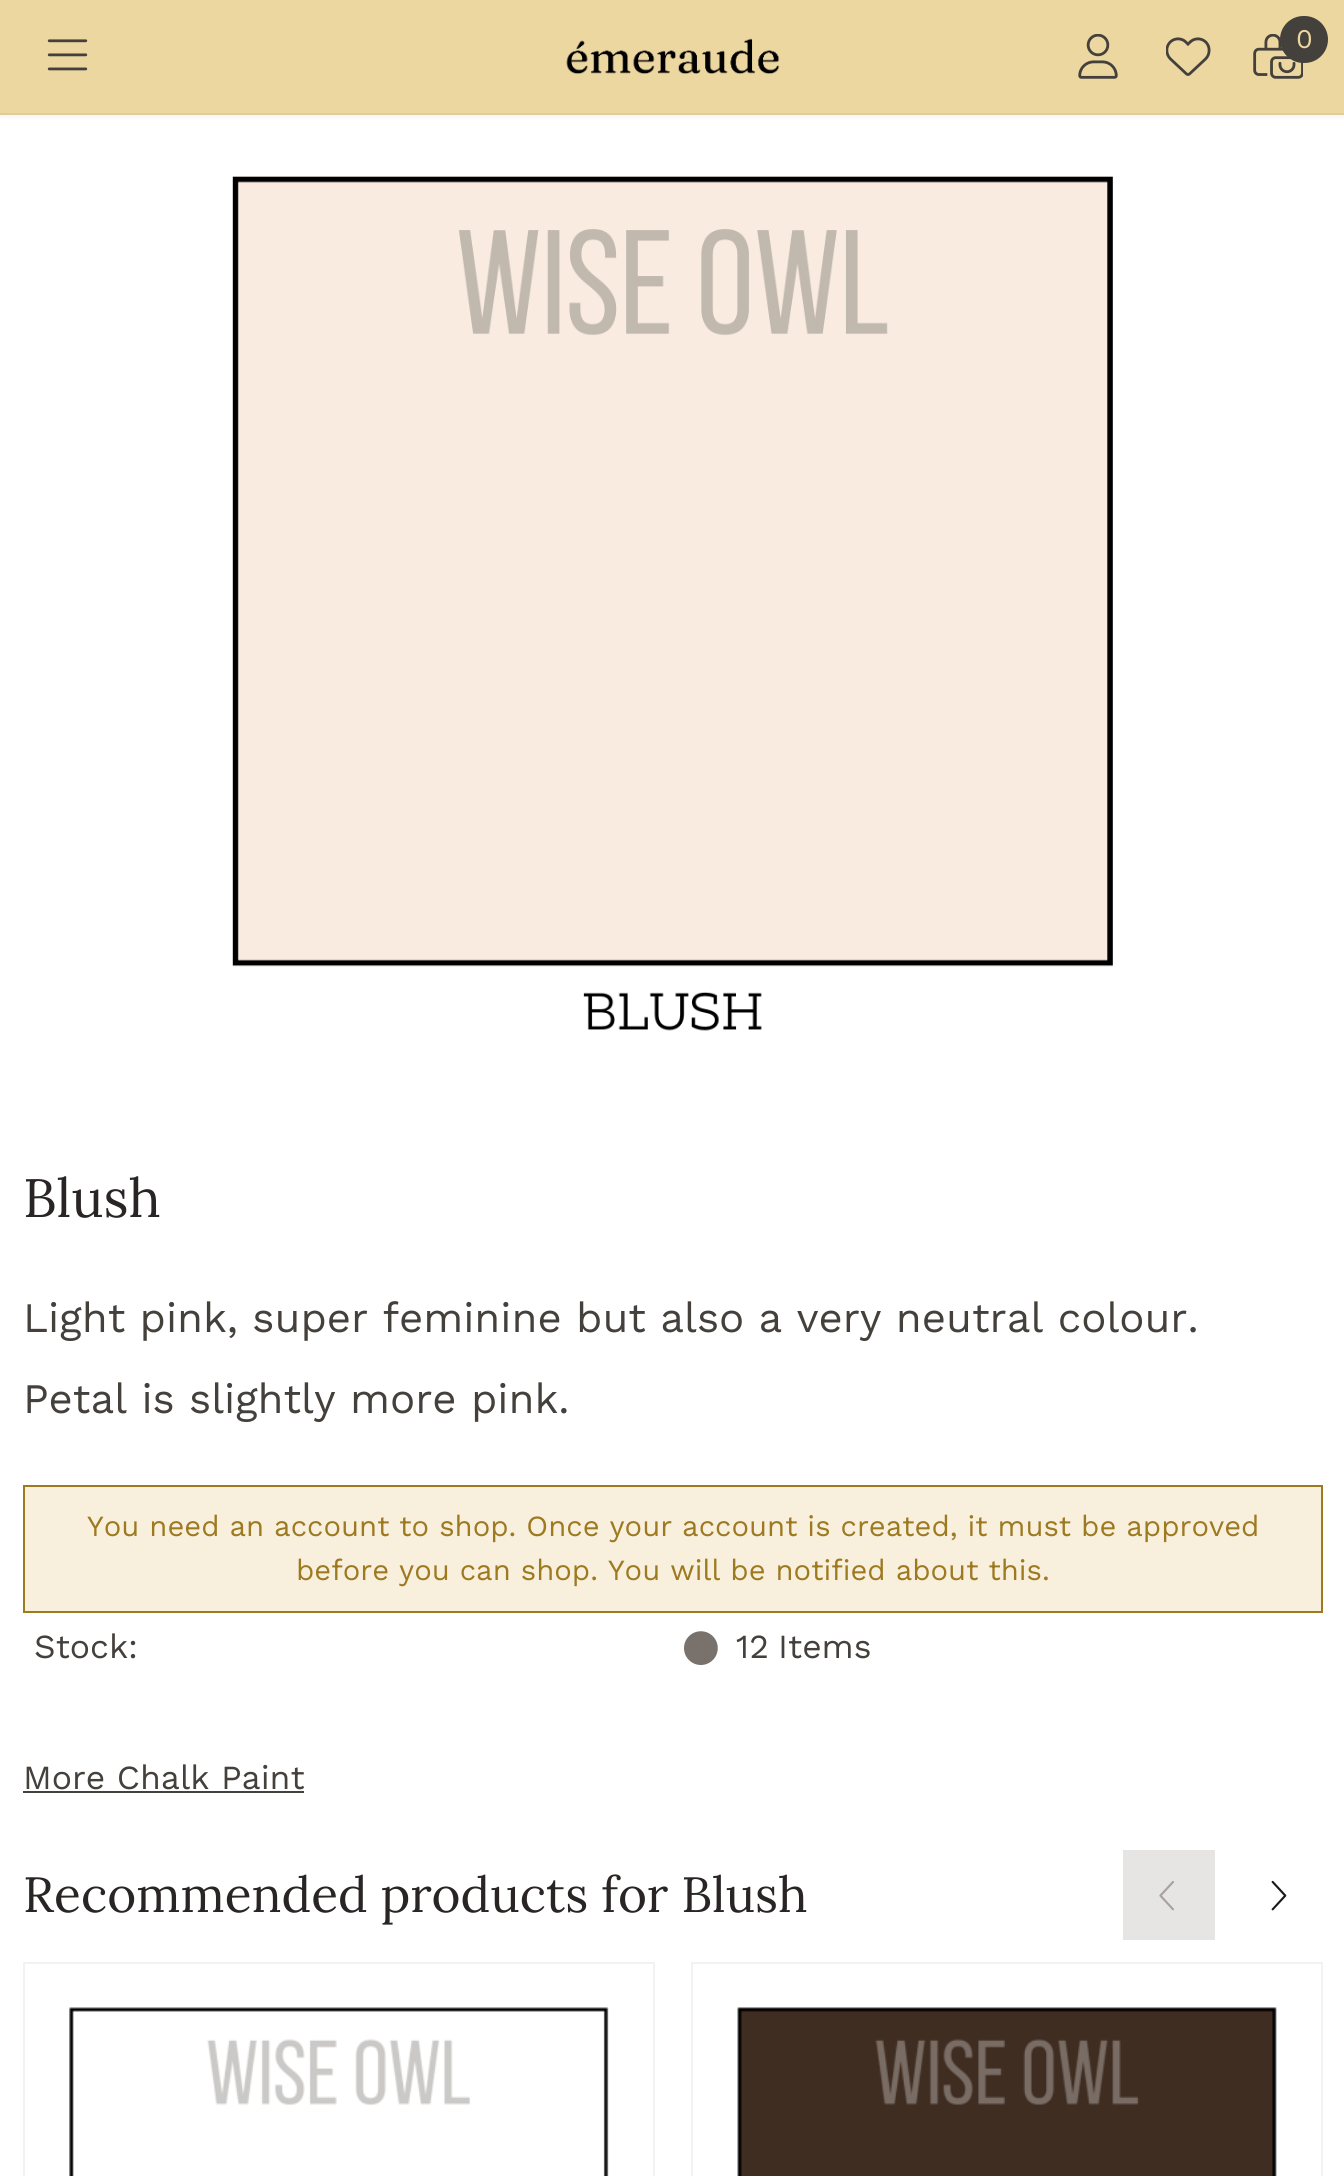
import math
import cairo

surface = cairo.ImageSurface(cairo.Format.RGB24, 1344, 2176)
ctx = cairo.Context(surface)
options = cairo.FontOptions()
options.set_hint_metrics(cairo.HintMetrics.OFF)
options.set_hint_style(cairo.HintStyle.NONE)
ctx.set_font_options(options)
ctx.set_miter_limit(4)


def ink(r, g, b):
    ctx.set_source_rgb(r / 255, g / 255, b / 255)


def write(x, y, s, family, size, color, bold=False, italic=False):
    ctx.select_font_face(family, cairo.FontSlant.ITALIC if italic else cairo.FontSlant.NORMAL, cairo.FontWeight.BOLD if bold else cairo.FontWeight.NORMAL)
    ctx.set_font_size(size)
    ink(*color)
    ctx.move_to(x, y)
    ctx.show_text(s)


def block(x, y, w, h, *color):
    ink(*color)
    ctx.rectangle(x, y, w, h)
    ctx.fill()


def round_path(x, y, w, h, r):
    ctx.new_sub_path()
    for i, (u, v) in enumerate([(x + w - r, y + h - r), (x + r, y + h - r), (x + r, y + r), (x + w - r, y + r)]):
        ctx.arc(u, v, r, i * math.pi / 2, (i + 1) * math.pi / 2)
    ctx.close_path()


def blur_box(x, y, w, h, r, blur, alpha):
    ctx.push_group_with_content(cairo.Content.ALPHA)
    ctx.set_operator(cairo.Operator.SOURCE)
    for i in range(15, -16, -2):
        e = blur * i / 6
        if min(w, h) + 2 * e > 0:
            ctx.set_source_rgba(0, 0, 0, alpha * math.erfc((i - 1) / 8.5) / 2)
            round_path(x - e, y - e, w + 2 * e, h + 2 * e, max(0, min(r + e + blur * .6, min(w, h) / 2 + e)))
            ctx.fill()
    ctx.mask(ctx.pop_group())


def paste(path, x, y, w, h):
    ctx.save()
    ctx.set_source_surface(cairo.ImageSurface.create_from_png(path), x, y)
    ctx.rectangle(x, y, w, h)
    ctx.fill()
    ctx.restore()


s1 = dict(family="Work Sans", size=27, color=(236, 215, 161))
s2 = dict(family="Lora", size=54, color=(41, 37, 36))
s3 = dict(family="Work Sans", size=42, color=(68, 64, 60))
s4 = dict(family="Work Sans", size=29.25, color=(157, 121, 32))
s5 = dict(family="Work Sans", size=33.75, color=(68, 64, 60))
s6 = dict(family="Lora", size=49.5, color=(41, 37, 36))

ink(255, 255, 255)
ctx.paint()
ink(0, 0, 0)
blur_box(0, 2, 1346, 115, 0, 2, 0.05)
block(0, 0, 1344, 113, 236, 215, 161)
block(0, 113, 1344, 2, 224, 204, 153)
paste("pic1.png", 47, 39, 41, 32)
paste("pic2.png", 566, 38, 214, 36)
paste("pic3.png", 1078, 34, 40, 45)
paste("pic4.png", 1166, 37, 45, 39)
paste("pic5.png", 1253, 34, 50, 45)
ink(68, 64, 60)
round_path(1280, 16, 48, 47, 23.5)
ctx.fill()
write(1296, 48, "0", **s1)
paste("pic6.png", 232, 176, 881, 855)
write(23, 1217, "Blush", **s2)
write(23, 1332, "Light pink, super feminine but also a very neutral colour.", **s3)
write(23, 1413, "Petal is slightly more pink.", **s3)
ink(248, 240, 221)
ctx.rectangle(24, 1486, 1298, 126)
ctx.fill_preserve()
ink(157, 121, 32)
ctx.stroke()
write(87, 1536, "You need an account to shop. Once your account is created, it must be approved", **s4)
write(296, 1580, "before you can shop. You will be notified about this.", **s4)
write(34, 1658, "Stock:", **s5)
paste("pic7.png", 684, 1631, 34, 34)
write(736, 1658, "12", **s5)
write(778, 1658, "Items", **s5)
write(23, 1789, "More Chalk Paint", **s5)
block(23, 1791, 281, 2, 68, 64, 60)
write(23, 1912, "Recommended products for Blush", **s6)
block(1123, 1850, 92, 90, 231, 229, 228)
paste("pic8.png", 1159, 1881, 15, 30)
paste("pic9.png", 1271, 1880, 16, 31)
ctx.rectangle(24, 1963, 630, 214)
ink(242, 242, 242)
ctx.stroke()
paste("pic10.png", 69, 2007, 540, 169)
ctx.rectangle(692, 1963, 630, 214)
ctx.stroke()
paste("pic11.png", 737, 2007, 540, 169)
surface.write_to_png("screenshot.png")
